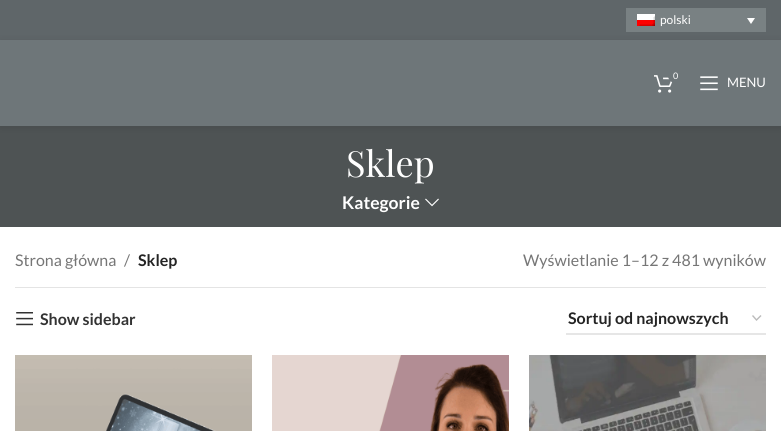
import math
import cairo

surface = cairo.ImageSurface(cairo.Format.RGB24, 781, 431)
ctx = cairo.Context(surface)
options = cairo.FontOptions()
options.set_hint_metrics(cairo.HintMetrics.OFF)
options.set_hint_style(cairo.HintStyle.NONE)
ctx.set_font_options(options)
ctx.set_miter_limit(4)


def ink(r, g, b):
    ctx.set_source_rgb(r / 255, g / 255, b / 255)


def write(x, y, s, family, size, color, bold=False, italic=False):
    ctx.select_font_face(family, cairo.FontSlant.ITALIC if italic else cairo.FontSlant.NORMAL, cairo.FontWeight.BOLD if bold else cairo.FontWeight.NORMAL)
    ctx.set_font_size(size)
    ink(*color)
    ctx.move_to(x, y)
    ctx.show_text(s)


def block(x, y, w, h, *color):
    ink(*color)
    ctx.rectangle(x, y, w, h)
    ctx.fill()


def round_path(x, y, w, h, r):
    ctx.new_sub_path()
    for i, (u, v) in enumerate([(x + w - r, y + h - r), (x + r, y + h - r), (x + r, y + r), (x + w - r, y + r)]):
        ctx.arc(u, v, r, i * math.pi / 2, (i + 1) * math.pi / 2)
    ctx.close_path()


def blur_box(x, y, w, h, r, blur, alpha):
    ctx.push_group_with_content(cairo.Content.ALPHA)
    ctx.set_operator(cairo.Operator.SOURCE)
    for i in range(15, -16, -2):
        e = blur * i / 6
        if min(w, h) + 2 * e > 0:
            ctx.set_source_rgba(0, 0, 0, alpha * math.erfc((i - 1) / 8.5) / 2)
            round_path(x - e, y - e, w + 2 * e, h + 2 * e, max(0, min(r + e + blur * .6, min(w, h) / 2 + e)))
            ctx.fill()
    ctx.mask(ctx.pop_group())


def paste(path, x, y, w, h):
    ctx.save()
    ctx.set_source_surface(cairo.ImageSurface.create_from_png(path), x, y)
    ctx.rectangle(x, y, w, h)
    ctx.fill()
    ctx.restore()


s1 = dict(family="Lato", size=12, color=(255, 255, 255))
s2 = dict(family="Lato", size=9, color=(255, 255, 255))
s3 = dict(family="Lato", size=13, color=(255, 255, 255))
s4 = dict(family="Playfair Display", size=36, color=(255, 255, 255))
s5 = dict(family="Lato", size=17.5, color=(255, 255, 255), bold=True)
s6 = dict(family="Lato", size=16, color=(118, 118, 118))
s7 = dict(family="Lato", size=16, color=(36, 36, 36), bold=True)
s8 = dict(family="Lato", size=16, color=(51, 51, 51), bold=True)

ink(255, 255, 255)
ctx.paint()
block(0, 0, 781, 40, 95, 102, 105)
block(0, 126, 781, 101, 78, 83, 84)
ink(0, 0, 0)
blur_box(0, 41, 781, 86, 0, 4, 0.1)
block(626, 8, 140, 24, 121, 129, 131)
paste("pic1.png", 637, 14, 18, 12)
write(660, 24, "polski", **s1)
ctx.new_path()
ctx.move_to(747, 18)
ctx.line_to(755, 18)
ctx.line_to(751, 24)
ctx.close_path()
ctx.fill()
block(0, 40, 781, 86, 110, 118, 121)
paste("pic2.png", 654, 75, 19, 18)
ctx.arc(675.5, 75.5, 7.5, 0, 2 * math.pi)
ctx.fill()
write(673, 79, "0", **s2)
paste("pic3.png", 700, 76, 18, 15)
write(727, 87, "MENU", **s3)
write(346, 177, "Sklep", **s4)
write(342, 209, "Kategorie", **s5)
paste("pic4.png", 425, 198, 14, 9)
block(15, 287, 751, 1, 228, 228, 228)
write(15, 266, "Strona główna", **s6)
write(124, 266, "/", **s6)
write(138, 266, "Sklep", **s7)
write(523, 266, "Wyświetlanie 1–12 z 481 wyników", **s6)
paste("pic5.png", 16, 312, 17, 14)
write(40, 325, "Show sidebar", **s8)
ctx.new_path()
ctx.move_to(752.5, 315.5)
ctx.line_to(756.5, 320)
ctx.line_to(761, 315.5)
ink(187, 187, 187)
ctx.set_line_width(1.4)
ctx.stroke()
block(566, 333, 200, 2, 230, 230, 230)
write(568, 324, "Sortuj od najnowszych", **s7)
paste("pic6.png", 15, 355, 237, 76)
paste("pic7.png", 272, 355, 237, 76)
paste("pic8.png", 529, 355, 237, 76)
surface.write_to_png("screenshot.png")
